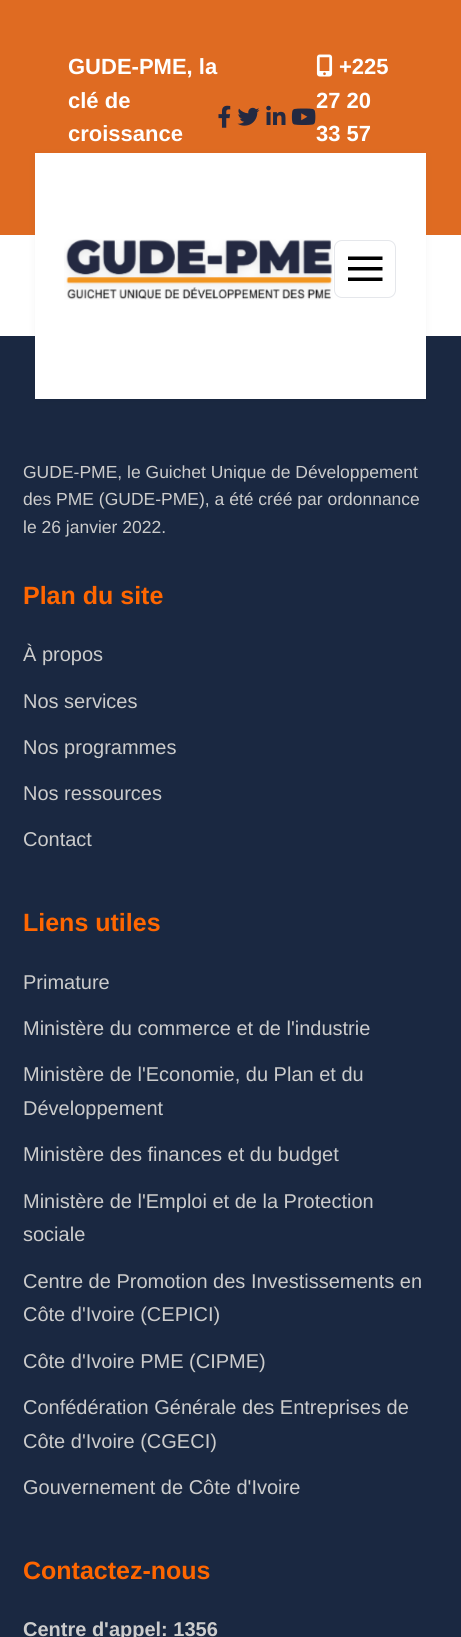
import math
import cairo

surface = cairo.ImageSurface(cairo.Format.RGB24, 461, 1637)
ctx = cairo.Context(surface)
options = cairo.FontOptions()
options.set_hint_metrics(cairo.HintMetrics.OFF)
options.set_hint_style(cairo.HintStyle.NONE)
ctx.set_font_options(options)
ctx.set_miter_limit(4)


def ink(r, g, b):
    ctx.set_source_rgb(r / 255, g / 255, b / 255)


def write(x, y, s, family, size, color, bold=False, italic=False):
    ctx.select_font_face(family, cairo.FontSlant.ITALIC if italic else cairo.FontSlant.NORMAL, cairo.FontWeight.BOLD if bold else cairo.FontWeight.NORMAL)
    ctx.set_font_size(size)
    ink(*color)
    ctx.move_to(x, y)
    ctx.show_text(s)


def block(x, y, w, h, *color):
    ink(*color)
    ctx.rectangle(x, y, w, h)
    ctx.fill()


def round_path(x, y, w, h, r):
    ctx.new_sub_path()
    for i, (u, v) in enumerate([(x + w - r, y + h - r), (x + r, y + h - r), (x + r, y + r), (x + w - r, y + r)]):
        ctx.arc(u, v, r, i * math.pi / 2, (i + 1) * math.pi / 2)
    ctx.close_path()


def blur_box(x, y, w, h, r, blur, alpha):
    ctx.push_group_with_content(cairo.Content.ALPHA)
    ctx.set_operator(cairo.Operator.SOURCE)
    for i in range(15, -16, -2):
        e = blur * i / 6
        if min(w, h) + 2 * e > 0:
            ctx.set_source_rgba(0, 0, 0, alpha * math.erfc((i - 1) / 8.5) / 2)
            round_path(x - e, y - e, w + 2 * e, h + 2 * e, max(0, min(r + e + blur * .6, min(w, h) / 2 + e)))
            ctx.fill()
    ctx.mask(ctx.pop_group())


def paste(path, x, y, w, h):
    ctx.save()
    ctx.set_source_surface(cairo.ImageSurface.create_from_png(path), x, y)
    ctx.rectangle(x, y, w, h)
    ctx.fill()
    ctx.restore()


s1 = dict(family="Liberation Sans", size=22, color=(255, 255, 255), bold=True)
s2 = dict(family="Liberation Sans", size=17.5, color=(204, 204, 204))
s3 = dict(family="Liberation Sans", size=25, color=(255, 102, 0), bold=True)
s4 = dict(family="Liberation Sans", size=20, color=(204, 204, 204))
s5 = dict(family="Liberation Sans", size=20, color=(204, 204, 204), bold=True)

ink(255, 255, 255)
ctx.paint()
block(0, 0, 461, 235, 223, 107, 34)
write(68, 74, "GUDE-PME, la", **s1)
write(68, 108, "clé de", **s1)
write(68, 141, "croissance", **s1)
paste("pic1.png", 218, 105, 13, 23)
paste("pic2.png", 237, 107, 23, 19)
paste("pic3.png", 266, 105, 20, 20)
paste("pic4.png", 291, 108, 25, 17)
paste("pic5.png", 316, 54, 17, 23)
write(339, 74, "+225", **s1)
write(316, 108, "27 20", **s1)
write(316, 141, "33 57", **s1)
block(0, 336, 461, 1301, 26, 40, 65)
ink(0, 0, 0)
blur_box(35, 155, 391, 246, 0, 5, 0.04)
block(35, 153, 391, 246, 255, 255, 255)
paste("pic6.png", 64, 239, 269, 61)
round_path(334.5, 240.5, 61, 57, 7.5)
ink(229, 231, 235)
ctx.set_line_width(1)
ctx.stroke()
ctx.save()
ctx.rectangle(348, 251, 35, 35)
ctx.clip()
ink(0, 0, 0)
ctx.new_path()
ctx.move_to(347.5, 256.5)
ctx.line_to(382.5, 256.5)
ctx.line_to(382.5, 260)
ctx.line_to(347.5, 260)
ctx.close_path()
ctx.move_to(347.5, 267)
ctx.line_to(382.5, 267)
ctx.line_to(382.5, 270.5)
ctx.line_to(347.5, 270.5)
ctx.close_path()
ctx.move_to(347.5, 277.5)
ctx.line_to(382.5, 277.5)
ctx.line_to(382.5, 281)
ctx.line_to(347.5, 281)
ctx.close_path()
ctx.fill()
ctx.restore()
write(23, 478, "GUDE-PME, le Guichet Unique de Développement", **s2)
write(23, 505, "des PME (GUDE-PME), a été créé par ordonnance", **s2)
write(23, 533, "le 26 janvier 2022.", **s2)
write(23, 604, "Plan du site", **s3)
write(23, 661, "À propos", **s4)
write(23, 708, "Nos services", **s4)
write(23, 754, "Nos programmes", **s4)
write(23, 800, "Nos ressources", **s4)
write(23, 846, "Contact", **s4)
write(23, 931, "Liens utiles", **s3)
write(23, 989, "Primature", **s4)
write(23, 1035, "Ministère du commerce et de l'industrie", **s4)
write(23, 1081, "Ministère de l'Economie, du Plan et du", **s4)
write(23, 1115, "Développement", **s4)
write(23, 1161, "Ministère des finances et du budget", **s4)
write(23, 1208, "Ministère de l'Emploi et de la Protection", **s4)
write(23, 1241, "sociale", **s4)
write(23, 1288, "Centre de Promotion des Investissements en", **s4)
write(23, 1321, "Côte d'Ivoire (CEPICI)", **s4)
write(23, 1368, "Côte d'Ivoire PME (CIPME)", **s4)
write(23, 1414, "Confédération Générale des Entreprises de", **s4)
write(23, 1448, "Côte d'Ivoire (CGECI)", **s4)
write(23, 1494, "Gouvernement de Côte d'Ivoire", **s4)
write(23, 1579, "Contactez-nous", **s3)
write(23, 1636, "Centre d'appel: 1356", **s5)
surface.write_to_png("screenshot.png")
